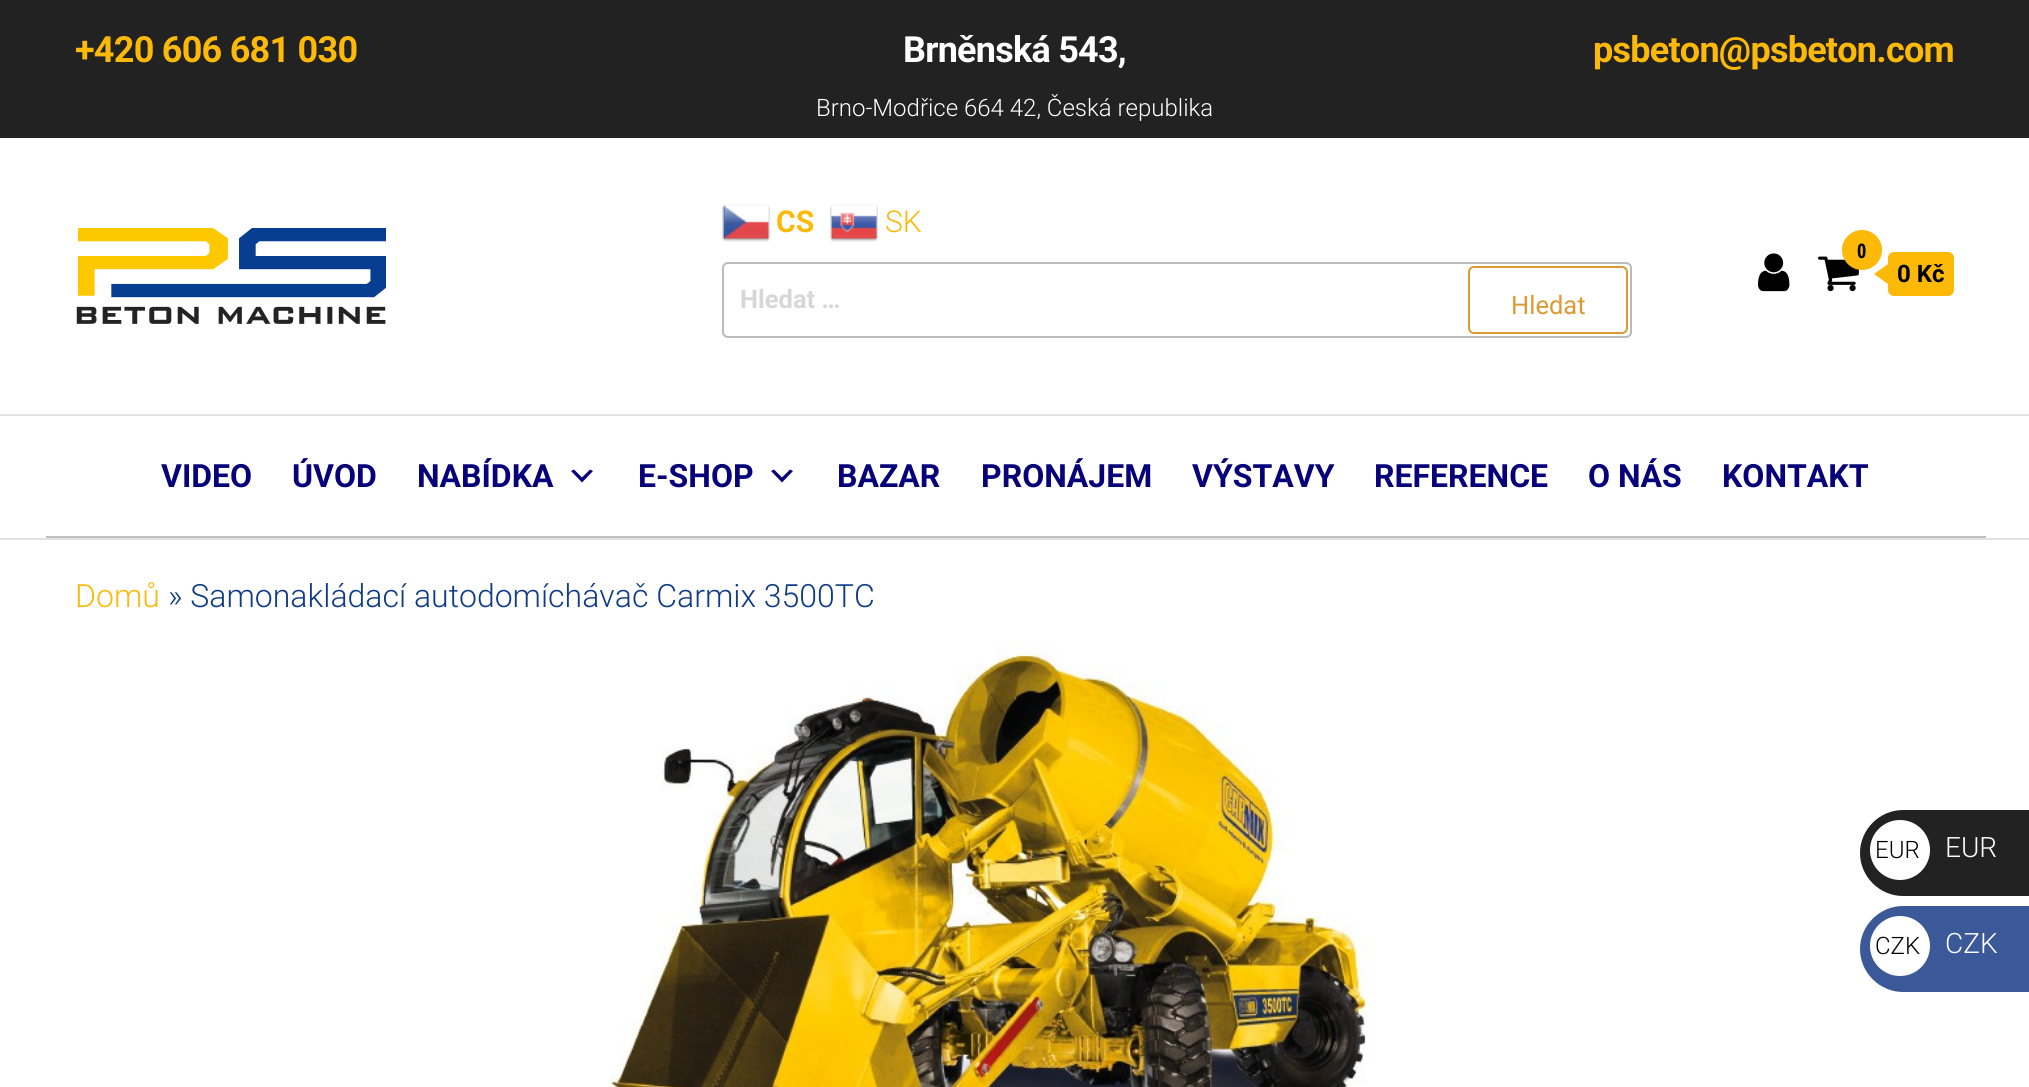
import math
import cairo

surface = cairo.ImageSurface(cairo.Format.RGB24, 2029, 1087)
ctx = cairo.Context(surface)
options = cairo.FontOptions()
options.set_hint_metrics(cairo.HintMetrics.OFF)
options.set_hint_style(cairo.HintStyle.NONE)
ctx.set_font_options(options)
ctx.set_miter_limit(4)


def ink(r, g, b):
    ctx.set_source_rgb(r / 255, g / 255, b / 255)


def write(x, y, s, family, size, color, bold=False, italic=False):
    ctx.select_font_face(family, cairo.FontSlant.ITALIC if italic else cairo.FontSlant.NORMAL, cairo.FontWeight.BOLD if bold else cairo.FontWeight.NORMAL)
    ctx.set_font_size(size)
    ink(*color)
    ctx.move_to(x, y)
    ctx.show_text(s)


def write_spaced(x, y, s, letter, word):
    ctx.move_to(x, y)
    for ch in s:
        ctx.show_text(ch)
        ctx.rel_move_to(letter + word * (ch == ' '), 0)


def block(x, y, w, h, *color):
    ink(*color)
    ctx.rectangle(x, y, w, h)
    ctx.fill()


def round_path(x, y, w, h, r):
    ctx.new_sub_path()
    for i, (u, v) in enumerate([(x + w - r, y + h - r), (x + r, y + h - r), (x + r, y + r), (x + w - r, y + r)]):
        ctx.arc(u, v, r, i * math.pi / 2, (i + 1) * math.pi / 2)
    ctx.close_path()


def paste(path, x, y, w, h):
    ctx.save()
    ctx.set_source_surface(cairo.ImageSurface.create_from_png(path), x, y)
    ctx.rectangle(x, y, w, h)
    ctx.fill()
    ctx.restore()


s1 = dict(family="Roboto Light", size=24, color=(255, 255, 255))
s2 = dict(family="Roboto", size=30, color=(253, 185, 7), bold=True)
s3 = dict(family="Roboto Light", size=30, color=(253, 185, 7))
s4 = dict(family="Roboto", size=25.5, color=(215, 215, 215), bold=True)
s5 = dict(family="Roboto", size=25.5, color=(221, 153, 51))
s6 = dict(family="Open Sans Condensed", size=20, color=(0, 0, 0), bold=True)
s7 = dict(family="Roboto", size=24, color=(0, 0, 0), bold=True)
s8 = dict(family="Roboto", size=32, color=(6, 0, 122), bold=True)
s9 = dict(family="Roboto Light", size=32, color=(253, 185, 7))
s10 = dict(family="Roboto Light", size=32, color=(16, 59, 135))
s11 = dict(family="Roboto Light", size=24, color=(0, 0, 0))
s12 = dict(family="Roboto Light", size=28, color=(255, 255, 255))

ink(255, 255, 255)
ctx.paint()
block(0, 0, 2029, 138, 34, 34, 34)
ctx.select_font_face("Roboto", cairo.FontSlant.NORMAL, cairo.FontWeight.BOLD)
ctx.set_font_size(36)
ink(253, 185, 7)
write_spaced(75, 62, "+420 606 681 030", -0.75, 0)
ink(255, 255, 255)
write_spaced(903, 62, "Brněnská 543,", -0.75, 0)
write(816, 116, "Brno-Modřice 664 42, Česká republika", **s1)
ctx.select_font_face("Roboto", cairo.FontSlant.NORMAL, cairo.FontWeight.BOLD)
ctx.set_font_size(36)
ink(253, 185, 7)
write_spaced(1593, 62, "psbeton@psbeton.com", -0.75, 0)
paste("pic1.png", 76, 228, 310, 96)
paste("pic2.png", 722, 204, 48, 38)
write(776, 232, "CS", **s2)
paste("pic3.png", 830, 204, 48, 38)
write(885, 232, "SK", **s3)
round_path(723, 263, 908, 74, 5)
ink(187, 187, 187)
ctx.stroke()
write(740, 308, "Hledat …", **s4)
round_path(1469, 267, 158, 66, 5)
ink(221, 153, 51)
ctx.stroke()
write(1511, 314, "Hledat", **s5)
paste("pic4.png", 1758, 253, 32, 39)
paste("pic5.png", 1818, 256, 41, 36)
ink(253, 185, 7)
ctx.arc(1862, 250, 20, 0, 2 * math.pi)
ctx.fill()
write(1857, 258, "0", **s6)
ink(253, 185, 7)
round_path(1888, 252, 66, 44, 6)
ctx.fill()
ctx.new_path()
ctx.move_to(1888, 264)
ctx.line_to(1888, 284)
ctx.line_to(1874, 274)
ctx.close_path()
ctx.fill()
write(1897, 282, "0 Kč", **s7)
block(0, 414, 2029, 2, 226, 226, 226)
block(0, 538, 2029, 2, 226, 226, 226)
block(46, 536, 1940, 2, 192, 192, 192)
write(161, 487, "VIDEO", **s8)
write(292, 487, "ÚVOD", **s8)
write(417, 487, "NABÍDKA", **s8)
ctx.new_path()
ctx.move_to(574, 469.5)
ctx.line_to(582, 477.5)
ctx.line_to(590, 469.5)
ctx.line_to(593, 471)
ctx.line_to(582, 482.5)
ctx.line_to(571, 471)
ctx.close_path()
ctx.fill()
write(638, 487, "E-SHOP", **s8)
ctx.new_path()
ctx.move_to(774, 469.5)
ctx.line_to(782, 477.5)
ctx.line_to(790, 469.5)
ctx.line_to(793, 471)
ctx.line_to(782, 482.5)
ctx.line_to(771, 471)
ctx.close_path()
ctx.fill()
write(837, 487, "BAZAR", **s8)
write(981, 487, "PRONÁJEM", **s8)
write(1192, 487, "VÝSTAVY", **s8)
write(1374, 487, "REFERENCE", **s8)
write(1588, 487, "O NÁS", **s8)
write(1722, 487, "KONTAKT", **s8)
write(75, 607, "Domů", **s9)
write(168, 607, "» Samonakládací autodomíchávač Carmix 3500TC", **s10)
paste("pic6.png", 609, 643, 767, 444)
ink(34, 34, 34)
ctx.new_path()
ctx.move_to(1903, 810)
ctx.line_to(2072, 810)
ctx.line_to(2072, 896)
ctx.line_to(1903, 896)
ctx.curve_to(1879.5, 896, 1860, 876.5, 1860, 853)
ctx.curve_to(1860, 829.5, 1879.5, 810, 1903, 810)
ctx.close_path()
ctx.fill()
ink(255, 255, 255)
ctx.arc(1900, 850, 30, 0, 2 * math.pi)
ctx.fill()
write(1875, 858, "EUR", **s11)
write(1945, 857, "EUR", **s12)
ink(59, 89, 152)
ctx.new_path()
ctx.move_to(1903, 906)
ctx.line_to(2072, 906)
ctx.line_to(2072, 992)
ctx.line_to(1903, 992)
ctx.curve_to(1879.5, 992, 1860, 972.5, 1860, 949)
ctx.curve_to(1860, 925.5, 1879.5, 906, 1903, 906)
ctx.close_path()
ctx.fill()
ink(255, 255, 255)
ctx.arc(1900, 946, 30, 0, 2 * math.pi)
ctx.fill()
write(1875, 954, "CZK", **s11)
write(1945, 953, "CZK", **s12)
surface.write_to_png("screenshot.png")
